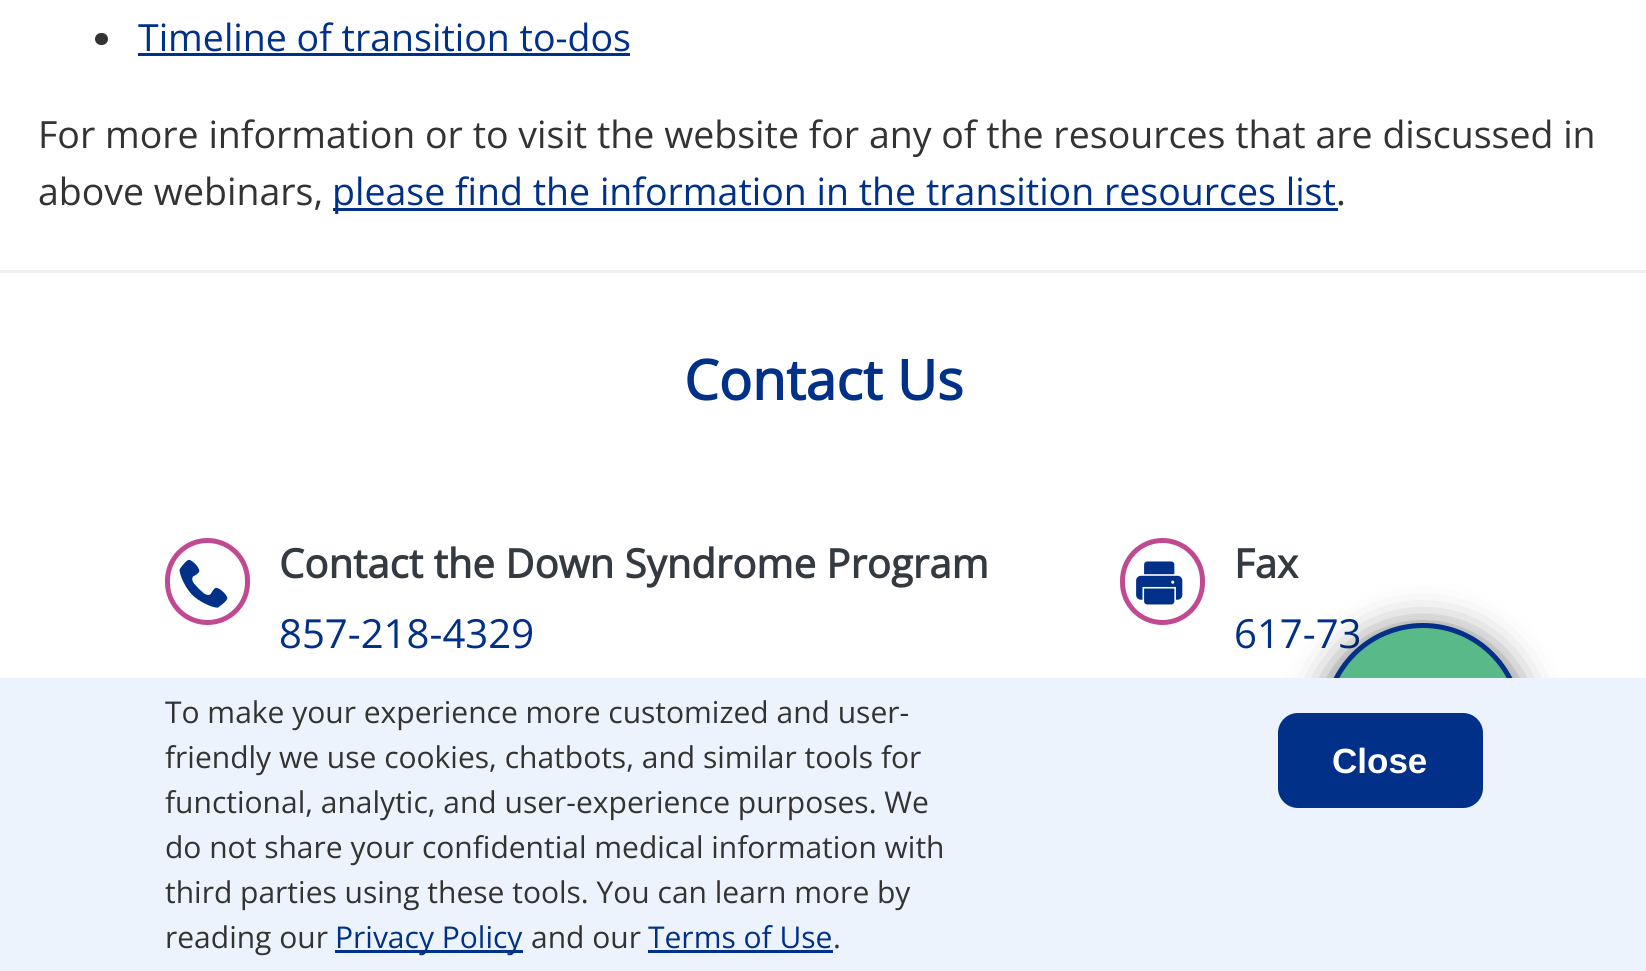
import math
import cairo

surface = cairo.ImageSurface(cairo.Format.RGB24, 1646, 971)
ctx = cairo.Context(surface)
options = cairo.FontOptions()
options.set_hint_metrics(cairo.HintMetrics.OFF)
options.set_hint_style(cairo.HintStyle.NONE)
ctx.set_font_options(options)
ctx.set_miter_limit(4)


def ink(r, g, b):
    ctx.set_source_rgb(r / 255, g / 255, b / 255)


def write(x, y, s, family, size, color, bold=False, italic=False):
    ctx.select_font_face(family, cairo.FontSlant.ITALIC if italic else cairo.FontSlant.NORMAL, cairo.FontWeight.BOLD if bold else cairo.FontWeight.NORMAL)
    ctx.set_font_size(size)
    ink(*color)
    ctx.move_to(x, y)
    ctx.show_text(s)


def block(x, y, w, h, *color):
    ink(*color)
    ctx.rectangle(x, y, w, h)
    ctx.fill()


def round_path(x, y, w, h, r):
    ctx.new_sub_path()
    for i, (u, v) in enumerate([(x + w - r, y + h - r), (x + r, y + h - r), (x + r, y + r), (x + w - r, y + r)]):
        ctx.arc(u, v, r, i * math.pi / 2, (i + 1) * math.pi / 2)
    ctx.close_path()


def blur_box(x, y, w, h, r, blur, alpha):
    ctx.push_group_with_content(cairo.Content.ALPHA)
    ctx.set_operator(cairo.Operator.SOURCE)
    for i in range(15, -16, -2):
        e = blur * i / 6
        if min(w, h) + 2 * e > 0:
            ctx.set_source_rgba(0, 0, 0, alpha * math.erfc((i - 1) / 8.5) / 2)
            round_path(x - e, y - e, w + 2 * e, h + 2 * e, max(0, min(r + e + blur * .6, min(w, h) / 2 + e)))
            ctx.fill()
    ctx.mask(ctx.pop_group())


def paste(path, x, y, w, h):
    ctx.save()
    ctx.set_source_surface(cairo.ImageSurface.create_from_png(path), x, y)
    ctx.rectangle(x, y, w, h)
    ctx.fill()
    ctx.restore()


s1 = dict(family="Open Sans", size=37.5, color=(0, 48, 135))
s2 = dict(family="Open Sans", size=37.5, color=(51, 51, 51))
s3 = dict(family="Open Sans", size=55.25, color=(0, 48, 135), bold=True)
s4 = dict(family="Open Sans", size=40.1, color=(52, 58, 64), bold=True)
s5 = dict(family="Open Sans", size=40.1, color=(0, 48, 135))
s6 = dict(family="Open Sans", size=30, color=(51, 51, 51))
s7 = dict(family="Open Sans", size=30, color=(0, 48, 135))
s8 = dict(family="Liberation Sans", size=35, color=(255, 255, 255), bold=True)

ink(255, 255, 255)
ctx.paint()
ink(51, 51, 51)
round_path(95, 33, 13, 12, 6)
ctx.fill()
write(138, 51, "Timeline of transition to-dos", **s1)
block(138, 53, 492, 3, 0, 48, 135)
write(38, 148, "For more information or to visit the website for any of the resources that are discussed in", **s2)
write(38, 205, "above webinars,", **s2)
block(333, 208, 1005, 3, 0, 48, 135)
write(332, 205, "please find the information in the transition resources list", **s1)
write(1336, 205, ".", **s2)
block(0, 270, 1646, 3, 239, 239, 239)
write(684, 400, "Contact Us", **s3)
paste("pic1.png", 179, 559, 49, 49)
round_path(167.5, 540.5, 80, 82, 40)
ink(193, 73, 145)
ctx.set_line_width(5)
ctx.stroke()
write(279, 578, "Contact the Down Syndrome Program", **s4)
write(279, 648, "857-218-4329", **s5)
paste("pic2.png", 1136, 561, 47, 44)
round_path(1122.5, 540.5, 80, 82, 40)
ink(193, 73, 145)
ctx.stroke()
write(1234, 578, "Fax", **s4)
write(1234, 648, "617-73", **s5)
ink(0, 0, 0)
blur_box(1323, 625, 200, 200, 100, 6, 0.12)
blur_box(1323, 630, 200, 200, 100, 20, 0.6)
ink(90, 185, 137)
ctx.arc(1423, 723, 97.5, 0, 2 * math.pi)
ctx.fill_preserve()
ink(0, 48, 135)
ctx.stroke()
block(0, 678, 1646, 293, 237, 243, 252)
write(165, 723, "To make your experience more customized and user-", **s6)
write(165, 768, "friendly we use cookies, chatbots, and similar tools for", **s6)
write(165, 813, "functional, analytic, and user-experience purposes. We", **s6)
write(165, 858, "do not share your confidential medical information with", **s6)
write(165, 903, "third parties using these tools. You can learn more by", **s6)
write(165, 948, "reading our", **s6)
block(335, 950, 188, 3, 0, 48, 135)
write(335, 948, "Privacy Policy", **s7)
write(531, 948, "and our", **s6)
write(648, 948, "Terms of Use", **s7)
write(833, 948, ".", **s6)
block(648, 950, 185, 3, 0, 48, 135)
round_path(1280.5, 715.5, 200, 90, 17.5)
ctx.fill_preserve()
ctx.stroke()
write(1332, 773, "Close", **s8)
surface.write_to_png("screenshot.png")
